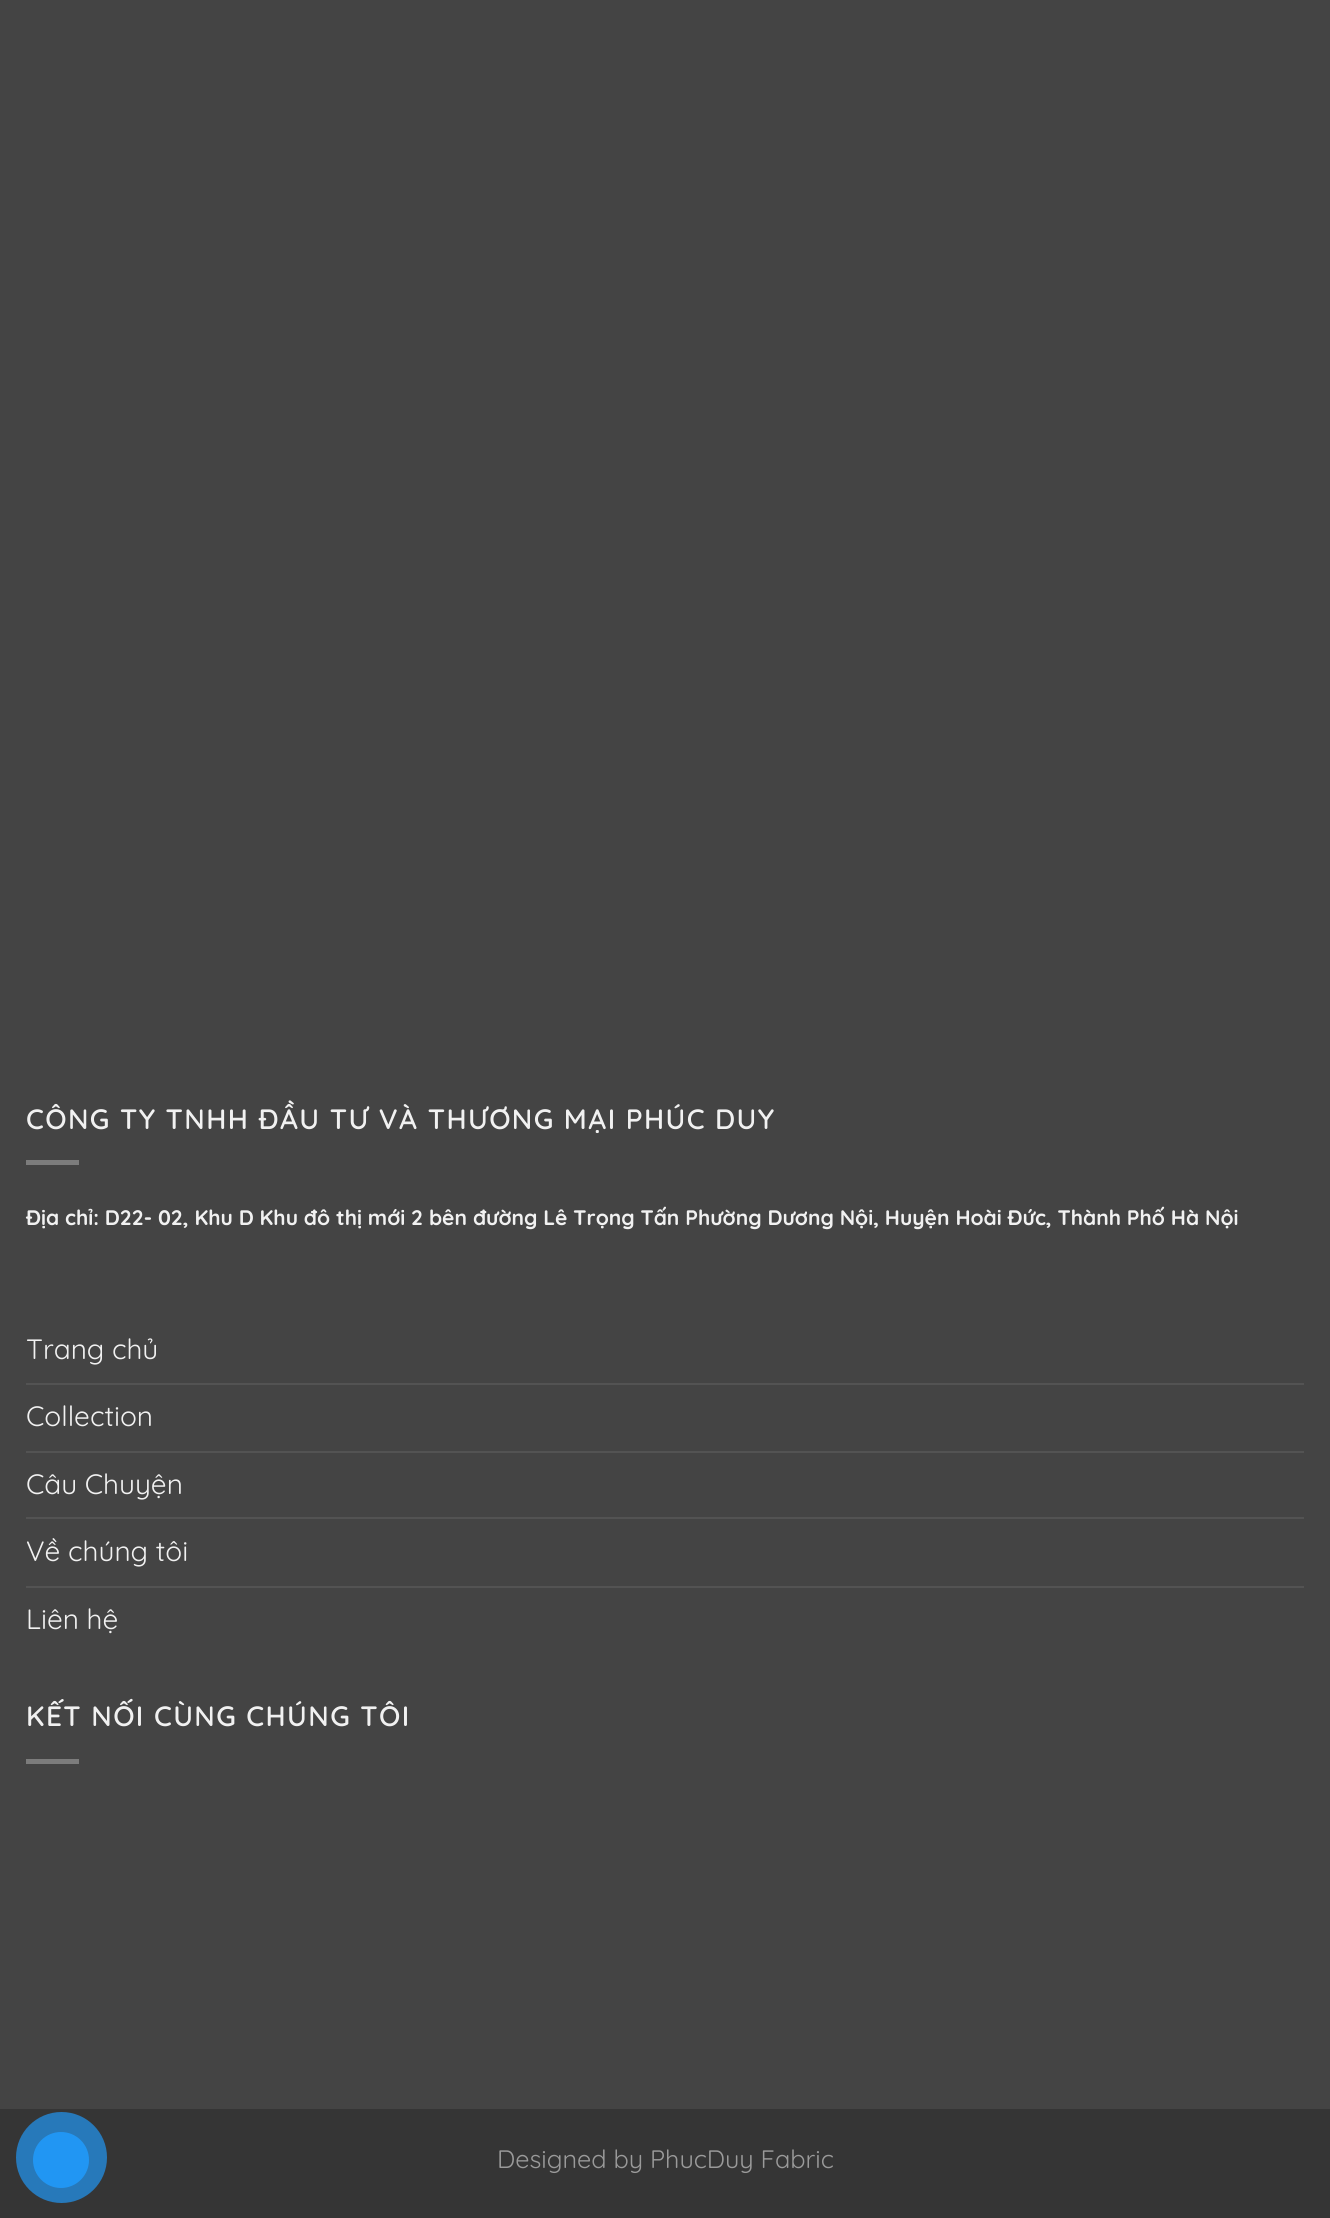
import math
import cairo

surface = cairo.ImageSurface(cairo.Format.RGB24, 1330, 2218)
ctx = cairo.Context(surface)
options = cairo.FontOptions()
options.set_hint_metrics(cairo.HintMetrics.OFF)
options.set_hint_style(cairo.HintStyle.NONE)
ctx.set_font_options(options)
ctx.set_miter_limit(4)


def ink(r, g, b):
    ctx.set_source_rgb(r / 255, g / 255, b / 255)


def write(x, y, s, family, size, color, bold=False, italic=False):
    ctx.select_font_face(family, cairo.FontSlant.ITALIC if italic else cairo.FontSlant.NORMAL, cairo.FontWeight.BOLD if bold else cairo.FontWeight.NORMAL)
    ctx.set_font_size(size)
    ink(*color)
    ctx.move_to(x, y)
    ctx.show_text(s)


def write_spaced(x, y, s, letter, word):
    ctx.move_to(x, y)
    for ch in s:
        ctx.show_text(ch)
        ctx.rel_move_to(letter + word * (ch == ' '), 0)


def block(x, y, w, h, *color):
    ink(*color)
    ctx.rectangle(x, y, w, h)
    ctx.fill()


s1 = dict(family="Quicksand", size=21, color=(241, 241, 241), bold=True)
s2 = dict(family="Quicksand", size=28, color=(241, 241, 241))
s3 = dict(family="Quicksand", size=25.25, color=(154, 154, 154))

ink(68, 68, 68)
ctx.paint()
ctx.select_font_face("Quicksand SemiBold")
ctx.set_font_size(28)
ink(241, 241, 241)
write_spaced(26, 1129, "CÔNG TY TNHH ĐẦU TƯ VÀ THƯƠNG MẠI PHÚC DUY", 1.4, 0)
block(26, 1160, 53, 5, 124, 124, 124)
write(26, 1225, "Địa chỉ: D22- 02, Khu D Khu đô thị mới 2 bên đường Lê Trọng Tấn Phường Dương Nội, Huyện Hoài Đức, Thành Phố Hà Nội", **s1)
write(26, 1359, "Trang chủ", **s2)
block(26, 1383, 1278, 2, 83, 83, 83)
write(26, 1426, "Collection", **s2)
block(26, 1451, 1278, 2, 83, 83, 83)
write(26, 1494, "Câu Chuyện", **s2)
block(26, 1517, 1278, 2, 83, 83, 83)
write(26, 1561, "Về chúng tôi", **s2)
block(26, 1586, 1278, 2, 83, 83, 83)
write(26, 1629, "Liên hệ", **s2)
ctx.select_font_face("Quicksand SemiBold")
write_spaced(26, 1726, "KẾT NỐI CÙNG CHÚNG TÔI", 1.4, 0)
block(26, 1759, 53, 5, 124, 124, 124)
block(0, 2109, 1330, 109, 53, 53, 53)
write(497, 2168, "Designed by PhucDuy Fabric", **s3)
ink(39, 121, 186)
ctx.new_path()
ctx.arc(61.5, 2157.5, 45.5, 0, 2 * math.pi)
ctx.fill()
ink(33, 150, 243)
ctx.arc(61, 2160, 28, 0, 2 * math.pi)
ctx.fill()
surface.write_to_png("screenshot.png")
